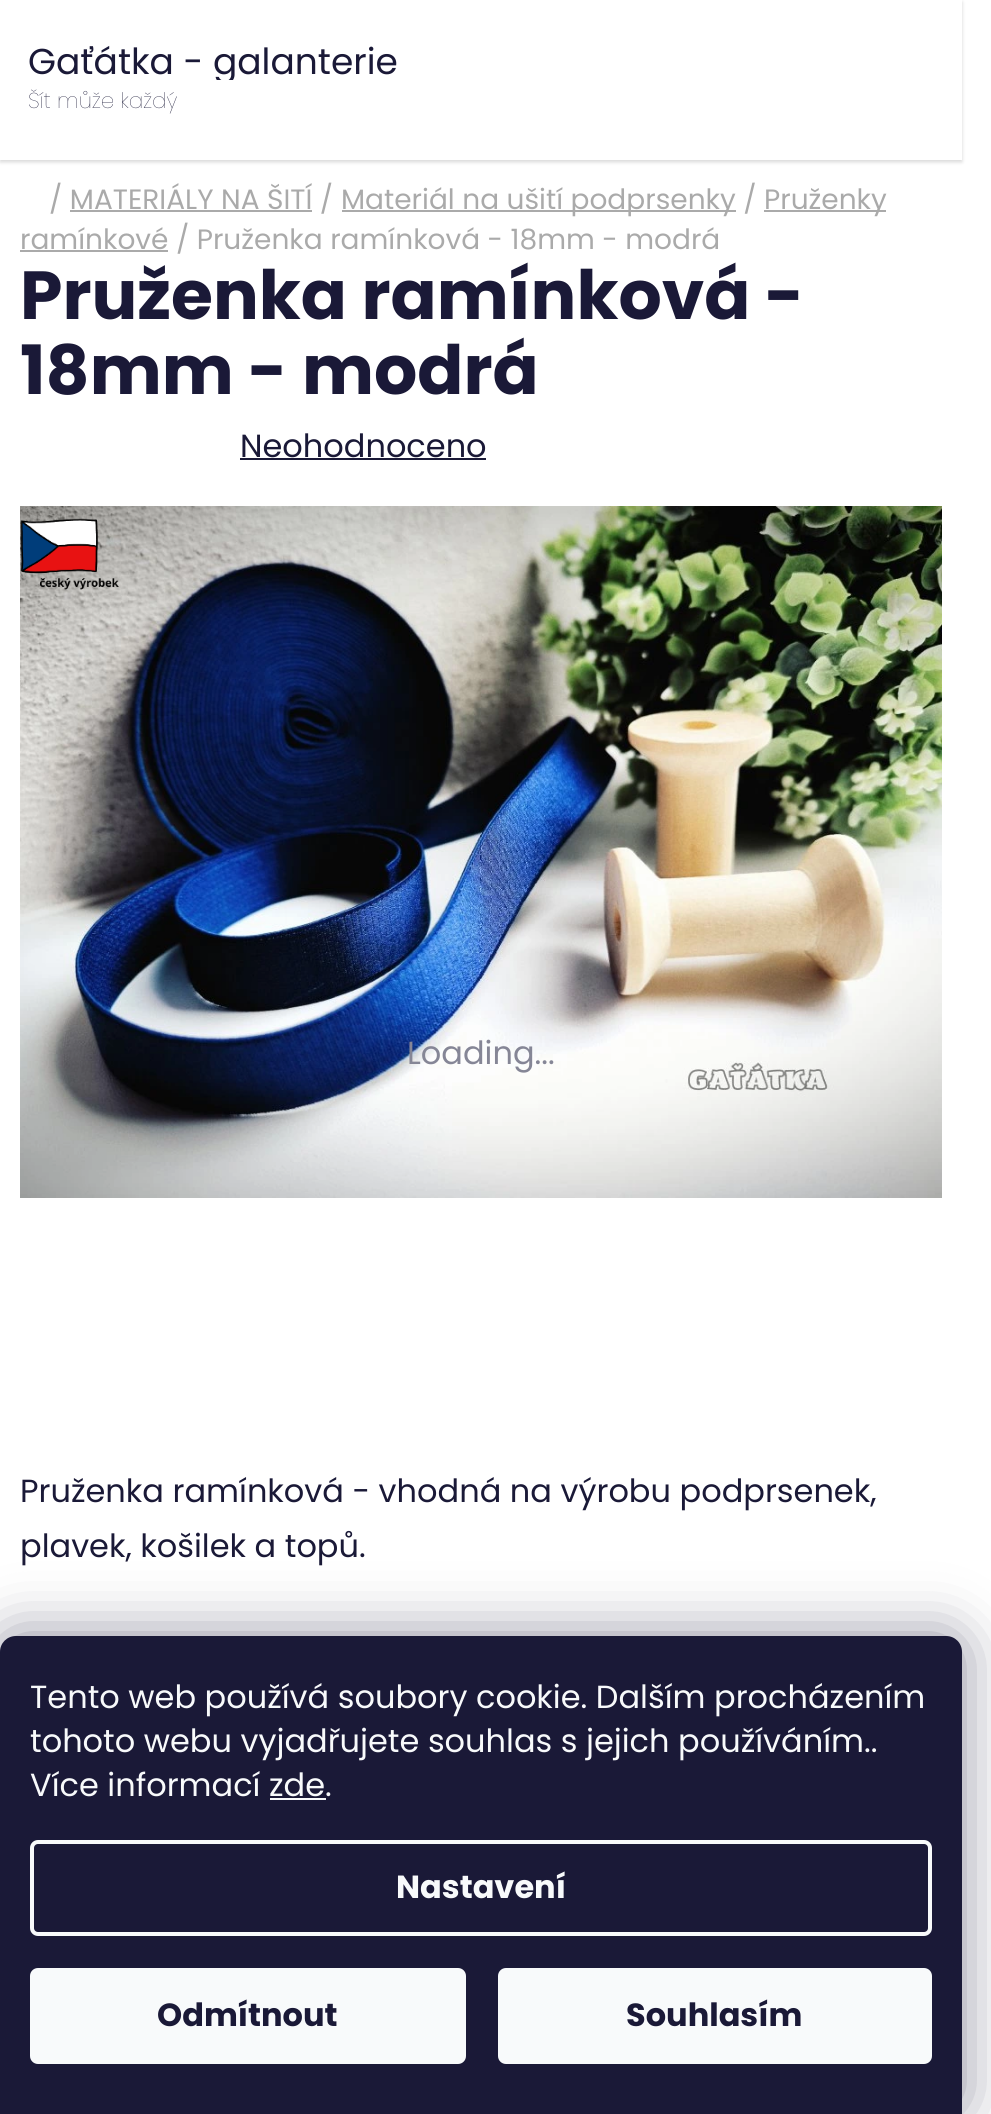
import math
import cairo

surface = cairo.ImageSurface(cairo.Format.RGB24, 991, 2114)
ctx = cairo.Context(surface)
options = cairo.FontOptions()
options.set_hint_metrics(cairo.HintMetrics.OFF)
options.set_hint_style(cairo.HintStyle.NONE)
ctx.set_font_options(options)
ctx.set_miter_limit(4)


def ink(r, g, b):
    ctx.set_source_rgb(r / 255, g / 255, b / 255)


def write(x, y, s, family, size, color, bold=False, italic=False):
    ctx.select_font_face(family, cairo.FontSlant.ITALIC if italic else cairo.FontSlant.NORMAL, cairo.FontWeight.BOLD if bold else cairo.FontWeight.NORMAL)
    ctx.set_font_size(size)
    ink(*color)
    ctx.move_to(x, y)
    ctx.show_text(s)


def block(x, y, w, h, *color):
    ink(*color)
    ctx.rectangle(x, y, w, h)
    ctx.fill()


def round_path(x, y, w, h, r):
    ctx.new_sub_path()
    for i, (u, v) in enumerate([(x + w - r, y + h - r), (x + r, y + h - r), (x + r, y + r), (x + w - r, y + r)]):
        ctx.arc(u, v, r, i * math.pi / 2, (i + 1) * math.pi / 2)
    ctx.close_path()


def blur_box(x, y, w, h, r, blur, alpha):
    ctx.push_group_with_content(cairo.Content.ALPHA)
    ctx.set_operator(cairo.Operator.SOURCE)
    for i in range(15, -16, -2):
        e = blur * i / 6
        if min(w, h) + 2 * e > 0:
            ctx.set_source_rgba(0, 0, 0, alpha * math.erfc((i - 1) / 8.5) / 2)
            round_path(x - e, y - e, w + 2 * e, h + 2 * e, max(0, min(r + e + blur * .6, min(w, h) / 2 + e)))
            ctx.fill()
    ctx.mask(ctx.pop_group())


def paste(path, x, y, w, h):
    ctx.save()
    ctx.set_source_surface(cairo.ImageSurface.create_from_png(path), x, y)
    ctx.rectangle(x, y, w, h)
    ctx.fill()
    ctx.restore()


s1 = dict(family="Poppins", size=36, color=(26, 25, 55))
s2 = dict(family="Poppins Thin", size=21.5, color=(26, 25, 55))
s3 = dict(family="Poppins", size=28, color=(170, 170, 170))
s4 = dict(family="Poppins", size=68, color=(26, 25, 55), bold=True)
s5 = dict(family="Poppins", size=32, color=(26, 25, 55))
s6 = dict(family="Poppins", size=32, color=(133, 134, 150))
s7 = dict(family="Poppins", size=32, color=(248, 250, 251))
s8 = dict(family="Poppins", size=32, color=(248, 250, 251), bold=True)
s9 = dict(family="Poppins", size=32, color=(26, 25, 55), bold=True)

ink(255, 255, 255)
ctx.paint()
ctx.save()
ctx.set_fill_rule(cairo.FillRule.EVEN_ODD)
ctx.new_path()
ctx.move_to(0, 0)
ctx.line_to(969, 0)
ctx.line_to(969, 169)
ctx.line_to(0, 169)
ctx.close_path()
ctx.move_to(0, 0)
ctx.line_to(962, 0)
ctx.line_to(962, 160)
ctx.line_to(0, 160)
ctx.close_path()
ctx.clip()
ink(0, 0, 0)
blur_box(0, 2, 962, 160, 0, 2, 0.16)
ctx.restore()
ctx.save()
ctx.rectangle(28, 44, 370, 36)
ctx.clip()
write(28, 74, "Gaťátka - galanterie", **s1)
ctx.restore()
write(28, 108, "Šít může každý", **s2)
write(49, 209, "/ MATERIÁLY NA ŠITÍ /", **s3)
block(342, 210, 394, 2, 170, 170, 170)
write(341, 209, "Materiál na ušití podprsenky /", **s3)
block(764, 210, 122, 2, 170, 170, 170)
write(764, 209, "Pruženky", **s3)
block(70, 210, 242, 2, 170, 170, 170)
block(20, 250, 148, 2, 170, 170, 170)
write(20, 249, "ramínkové / Pruženka ramínková - 18mm - modrá", **s3)
write(20, 319, "Pruženka ramínková -", **s4)
write(20, 394, "18mm - modrá", **s4)
write(240, 457, "Neohodnoceno", **s5)
block(240, 458, 246, 2, 26, 25, 55)
paste("pic2.png", 20, 506, 922, 692)
paste("pic1.png", 20, 518, 99, 72)
write(407, 1064, "Loading...", **s6)
write(20, 1502, "Pruženka ramínková - vhodná na výrobu podprsenek,", **s5)
write(20, 1557, "plavek, košilek a topů.", **s5)
ink(27, 25, 57)
blur_box(0, 1636, 962, 478, 16, 30, 0.5)
ink(26, 25, 55)
ctx.new_path()
ctx.move_to(16, 1636)
ctx.line_to(946, 1636)
ctx.curve_to(955, 1636, 962, 1643, 962, 1652)
ctx.line_to(962, 2114)
ctx.line_to(0, 2114)
ctx.line_to(0, 1652)
ctx.curve_to(0, 1643, 7, 1636, 16, 1636)
ctx.close_path()
ctx.fill()
write(30, 1708, "Tento web používá soubory cookie. Dalším procházením", **s7)
write(30, 1752, "tohoto webu vyjadřujete souhlas s jejich používáním..", **s7)
write(30, 1796, "Více informací zde.", **s7)
block(270, 1798, 56, 2, 248, 250, 251)
round_path(32, 1842, 898, 92, 6)
ctx.set_line_width(4)
ctx.stroke()
write(396, 1898, "Nastavení", **s8)
round_path(30, 1968, 436, 96, 8)
ctx.fill()
write(157, 2026, "Odmítnout", **s9)
ink(248, 250, 251)
round_path(498, 1968, 434, 96, 8)
ctx.fill()
write(626, 2026, "Souhlasím", **s9)
surface.write_to_png("screenshot.png")
